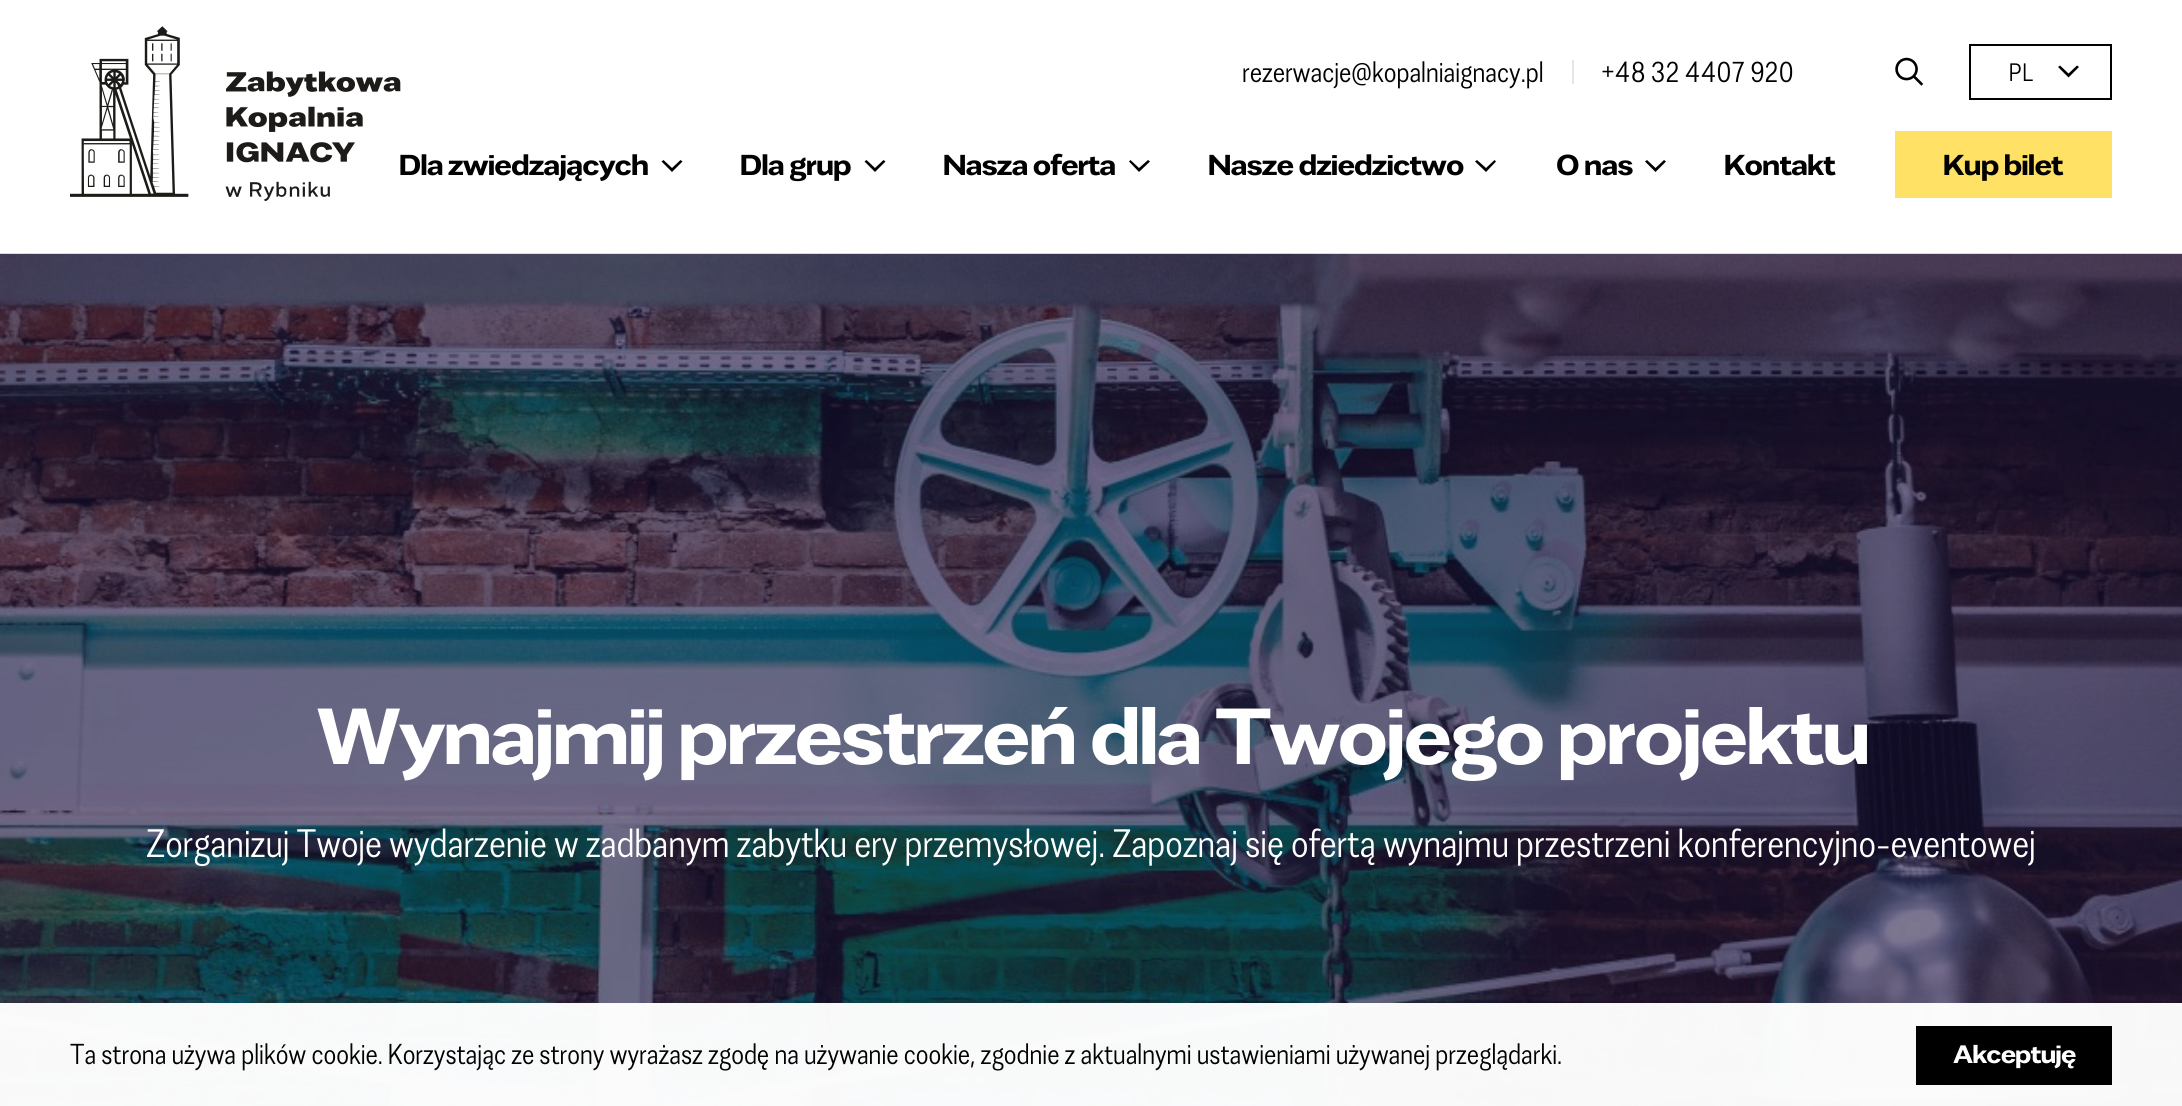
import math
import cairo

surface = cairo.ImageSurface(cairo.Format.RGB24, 2182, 1106)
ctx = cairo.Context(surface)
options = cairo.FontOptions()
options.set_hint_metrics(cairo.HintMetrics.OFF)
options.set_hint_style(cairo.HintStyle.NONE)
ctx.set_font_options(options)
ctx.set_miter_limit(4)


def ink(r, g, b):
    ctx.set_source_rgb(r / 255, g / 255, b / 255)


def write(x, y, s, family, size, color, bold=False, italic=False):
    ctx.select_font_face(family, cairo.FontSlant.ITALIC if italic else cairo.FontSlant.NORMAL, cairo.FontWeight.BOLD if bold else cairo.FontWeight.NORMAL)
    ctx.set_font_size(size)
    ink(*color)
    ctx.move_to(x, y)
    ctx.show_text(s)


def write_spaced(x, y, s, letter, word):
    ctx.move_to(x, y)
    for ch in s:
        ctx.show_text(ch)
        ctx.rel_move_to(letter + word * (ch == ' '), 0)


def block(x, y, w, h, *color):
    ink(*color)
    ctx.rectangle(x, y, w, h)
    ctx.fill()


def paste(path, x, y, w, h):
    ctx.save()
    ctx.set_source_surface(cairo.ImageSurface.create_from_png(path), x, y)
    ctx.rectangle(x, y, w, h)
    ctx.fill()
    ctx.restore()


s1 = dict(family="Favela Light", size=28, color=(0, 0, 0))
s2 = dict(family="Favela Light", size=38.5, color=(255, 255, 255))

ink(255, 255, 255)
ctx.paint()
paste("pic1.png", 70, 26, 331, 175)
write(1242, 82, "rezerwacje@kopalniaignacy.pl", **s1)
block(1572, 60, 2, 24, 230, 230, 230)
write(1601, 82, "+48 32 4407 920", **s1)
paste("pic2.png", 1895, 57, 29, 29)
ctx.rectangle(1970, 45, 141, 54)
ctx.stroke()
ctx.set_font_size(24.5)
write_spaced(2009, 81, "PL", 1, 0)
ctx.new_path()
ctx.move_to(2077, 65.5)
ctx.line_to(2068.5, 73.5)
ctx.line_to(2060, 65.5)
ctx.line_to(2058, 67)
ctx.line_to(2068.5, 77.5)
ctx.line_to(2079, 67)
ctx.close_path()
ctx.fill()
ctx.select_font_face("Favela Medium")
ctx.set_font_size(28)
write_spaced(399, 175, "Dla zwiedzających", -0.9, 0)
ctx.new_path()
ctx.move_to(680.5, 160)
ctx.line_to(672, 168)
ctx.line_to(663.5, 160)
ctx.line_to(661.5, 161.5)
ctx.line_to(672, 172)
ctx.line_to(682.5, 161.5)
ctx.close_path()
ctx.fill()
write_spaced(740, 175, "Dla grup", -0.9, 0)
ctx.new_path()
ctx.move_to(883.5, 160)
ctx.line_to(875, 168)
ctx.line_to(866.5, 160)
ctx.line_to(864.5, 161.5)
ctx.line_to(875, 172)
ctx.line_to(885.5, 161.5)
ctx.close_path()
ctx.fill()
write_spaced(943, 175, "Nasza oferta", -0.9, 0)
ctx.new_path()
ctx.move_to(1148, 160)
ctx.line_to(1139, 168)
ctx.line_to(1130.5, 160)
ctx.line_to(1129, 161.5)
ctx.line_to(1139, 172)
ctx.line_to(1150, 161.5)
ctx.close_path()
ctx.fill()
write_spaced(1208, 175, "Nasze dziedzictwo", -0.9, 0)
ctx.new_path()
ctx.move_to(1494.5, 160)
ctx.line_to(1486, 168)
ctx.line_to(1477, 160)
ctx.line_to(1475, 161.5)
ctx.line_to(1486, 172)
ctx.line_to(1496, 161.5)
ctx.close_path()
ctx.fill()
write_spaced(1556, 175, "O nas", -0.9, 0)
ctx.new_path()
ctx.move_to(1664, 160)
ctx.line_to(1655.5, 168)
ctx.line_to(1647, 160)
ctx.line_to(1645, 161.5)
ctx.line_to(1655.5, 172)
ctx.line_to(1666, 161.5)
ctx.close_path()
ctx.fill()
write_spaced(1724, 175, "Kontakt", -0.9, 0)
block(1895, 131, 217, 67, 255, 225, 102)
ink(0, 0, 0)
write_spaced(1943, 175, "Kup bilet", -0.9, 0)
paste("pic3.png", 0, 253, 2182, 853)
ctx.set_font_size(77)
ink(255, 255, 255)
write_spaced(316, 764, "Wynajmij przestrzeń dla Twojego projektu", -2.6, 0)
write(146, 857, "Zorganizuj Twoje wydarzenie w zadbanym zabytku ery przemysłowej. Zapoznaj się ofertą wynajmu przestrzeni konferencyjno-eventowej", **s2)
ctx.set_source_rgba(1, 1, 1, 0.97)
ctx.rectangle(0, 1003, 2182, 103)
ctx.fill()
write(70, 1064, "Ta strona używa plików cookie. Korzystając ze strony wyrażasz zgodę na używanie cookie, zgodnie z aktualnymi ustawieniami używanej przeglądarki.", **s1)
block(1916, 1026, 196, 59, 0, 0, 0)
ctx.select_font_face("Favela Medium")
ctx.set_font_size(24.5)
ink(255, 255, 255)
write_spaced(1953, 1063, "Akceptuję", -0.9, 0)
surface.write_to_png("screenshot.png")
